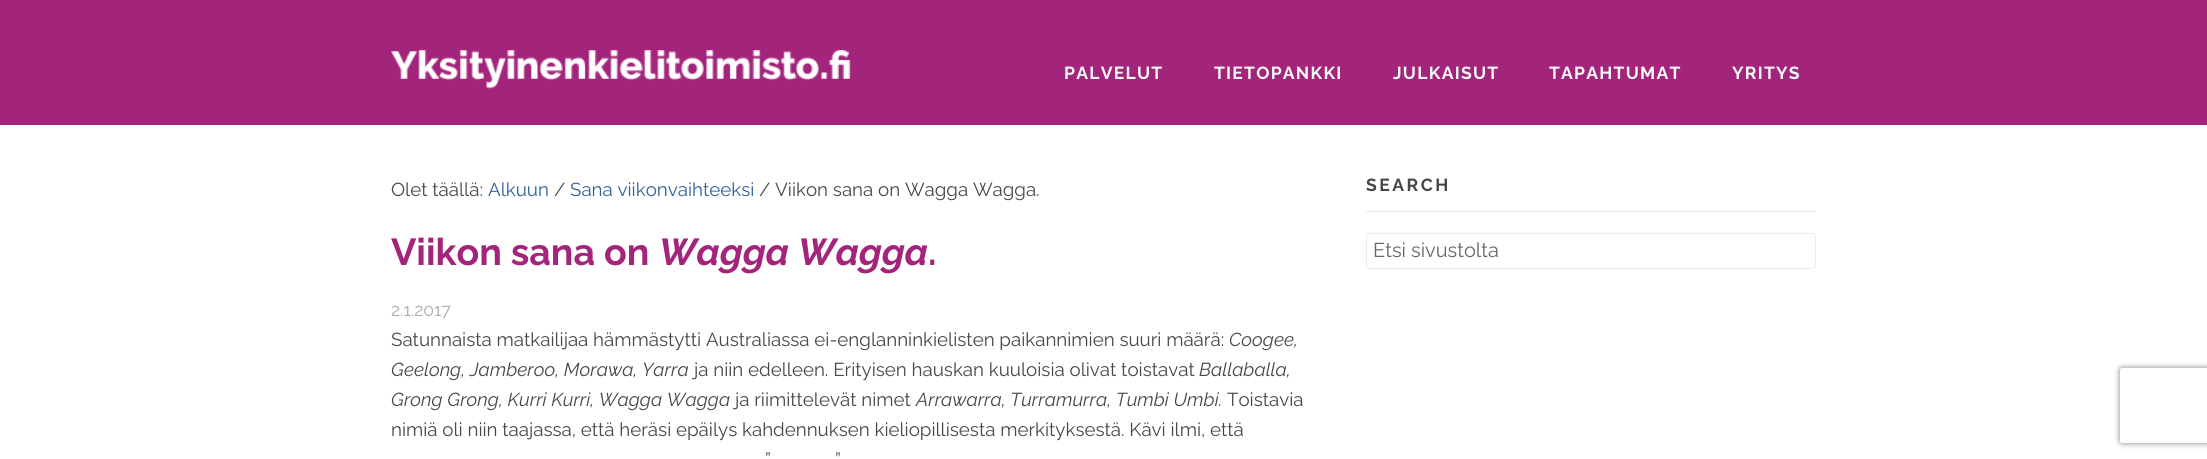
import math
import cairo

surface = cairo.ImageSurface(cairo.Format.RGB24, 2207, 459)
ctx = cairo.Context(surface)
options = cairo.FontOptions()
options.set_hint_metrics(cairo.HintMetrics.OFF)
options.set_hint_style(cairo.HintStyle.NONE)
ctx.set_font_options(options)
ctx.set_miter_limit(4)


def ink(r, g, b):
    ctx.set_source_rgb(r / 255, g / 255, b / 255)


def write(x, y, s, family, size, color, bold=False, italic=False):
    ctx.select_font_face(family, cairo.FontSlant.ITALIC if italic else cairo.FontSlant.NORMAL, cairo.FontWeight.BOLD if bold else cairo.FontWeight.NORMAL)
    ctx.set_font_size(size)
    ink(*color)
    ctx.move_to(x, y)
    ctx.show_text(s)


def write_spaced(x, y, s, letter, word):
    ctx.move_to(x, y)
    for ch in s:
        ctx.show_text(ch)
        ctx.rel_move_to(letter + word * (ch == ' '), 0)


def block(x, y, w, h, *color):
    ink(*color)
    ctx.rectangle(x, y, w, h)
    ctx.fill()


def round_path(x, y, w, h, r):
    ctx.new_sub_path()
    for i, (u, v) in enumerate([(x + w - r, y + h - r), (x + r, y + h - r), (x + r, y + r), (x + w - r, y + r)]):
        ctx.arc(u, v, r, i * math.pi / 2, (i + 1) * math.pi / 2)
    ctx.close_path()


def blur_box(x, y, w, h, r, blur, alpha):
    ctx.push_group_with_content(cairo.Content.ALPHA)
    ctx.set_operator(cairo.Operator.SOURCE)
    for i in range(15, -16, -2):
        e = blur * i / 6
        if min(w, h) + 2 * e > 0:
            ctx.set_source_rgba(0, 0, 0, alpha * math.erfc((i - 1) / 8.5) / 2)
            round_path(x - e, y - e, w + 2 * e, h + 2 * e, max(0, min(r + e + blur * .6, min(w, h) / 2 + e)))
            ctx.fill()
    ctx.mask(ctx.pop_group())


def paste(path, x, y, w, h):
    ctx.save()
    ctx.set_source_surface(cairo.ImageSurface.create_from_png(path), x, y)
    ctx.rectangle(x, y, w, h)
    ctx.fill()
    ctx.restore()


s1 = dict(family="Raleway", size=18.75, color=(71, 71, 71))
s2 = dict(family="Raleway", size=18.75, color=(47, 97, 153))
s3 = dict(family="Raleway", size=37.5, color=(163, 37, 123), bold=True)
s4 = dict(family="Raleway", size=37.5, color=(163, 37, 123), bold=True, italic=True)
s5 = dict(family="Raleway", size=17.5, color=(170, 170, 170))
s6 = dict(family="Raleway", size=18.75, color=(71, 71, 71), italic=True)
s7 = dict(family="Raleway", size=20, color=(102, 102, 102))

ink(255, 255, 255)
ctx.paint()
block(0, 0, 2207, 125, 163, 37, 123)
paste("pic1.png", 391, 50, 460, 39)
ctx.select_font_face("Raleway", cairo.FontSlant.NORMAL, cairo.FontWeight.BOLD)
ctx.set_font_size(17.5)
ink(247, 247, 247)
write_spaced(1064, 79, "PALVELUT", 1.25, 0)
write_spaced(1214, 79, "TIETOPANKKI", 1.25, 0)
write_spaced(1393, 79, "JULKAISUT", 1.25, 0)
write_spaced(1549, 79, "TAPAHTUMAT", 1.25, 0)
write_spaced(1732, 79, "YRITYS", 1.25, 0)
write(391, 196, "Olet täällä:", **s1)
write(488, 196, "Alkuun", **s2)
write(554, 196, "/", **s1)
write(570, 196, "Sana viikonvaihteeksi", **s2)
write(759, 196, "/ Viikon sana on Wagga Wagga.", **s1)
write(391, 265, "Viikon sana on", **s3)
write(659, 265, "Wagga Wagga", **s4)
write(928, 265, ".", **s3)
write(391, 316, "2.1.2017", **s5)
write(391, 346, "Satunnaista matkailijaa hämmästytti Australiassa ei-englanninkielisten paikannimien suuri määrä:", **s1)
write(1229, 346, "Coogee,", **s6)
write(391, 376, "Geelong, Jamberoo, Morawa, Yarra", **s6)
write(694, 376, "ja niin edelleen. Erityisen hauskan kuuloisia olivat toistavat", **s1)
write(1199, 376, "Ballaballa,", **s6)
write(391, 406, "Grong Grong, Kurri Kurri, Wagga Wagga", **s6)
write(735, 406, "ja riimittelevät nimet", **s1)
write(916, 406, "Arrawarra, Turramurra, Tumbi Umbi.", **s6)
write(1227, 406, "Toistavia", **s1)
write(391, 436, "nimiä oli niin taajassa, että heräsi epäilys kahdennuksen kieliopillisesta merkityksestä. Kävi ilmi, että", **s1)
write(765, 466, "”", **s1)
write(835, 466, "”", **s1)
block(1366, 211, 450, 1, 232, 232, 232)
ctx.select_font_face("Raleway", cairo.FontSlant.NORMAL, cairo.FontWeight.BOLD)
ctx.set_font_size(17.5)
ink(71, 71, 71)
write_spaced(1366, 191, "SEARCH", 2.5, 0)
round_path(1366.5, 233.5, 449, 35, 3.5)
ink(236, 236, 236)
ctx.set_line_width(1)
ctx.stroke()
write(1373, 257, "Etsi sivustolta", **s7)
ctx.save()
ctx.set_fill_rule(cairo.FillRule.EVEN_ODD)
ctx.new_path()
ctx.move_to(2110, 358)
ctx.line_to(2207, 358)
ctx.line_to(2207, 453)
ctx.line_to(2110, 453)
ctx.close_path()
ctx.move_to(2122.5, 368)
ctx.line_to(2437.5, 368)
ctx.curve_to(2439, 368, 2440, 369, 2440, 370.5)
ctx.line_to(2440, 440.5)
ctx.curve_to(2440, 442, 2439, 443, 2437.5, 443)
ctx.line_to(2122.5, 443)
ctx.curve_to(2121, 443, 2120, 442, 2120, 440.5)
ctx.line_to(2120, 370.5)
ctx.curve_to(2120, 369, 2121, 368, 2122.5, 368)
ctx.close_path()
ctx.clip()
ink(128, 128, 128)
blur_box(2120, 368, 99, 75, 2.5, 3, 1)
ctx.restore()
surface.write_to_png("screenshot.png")
